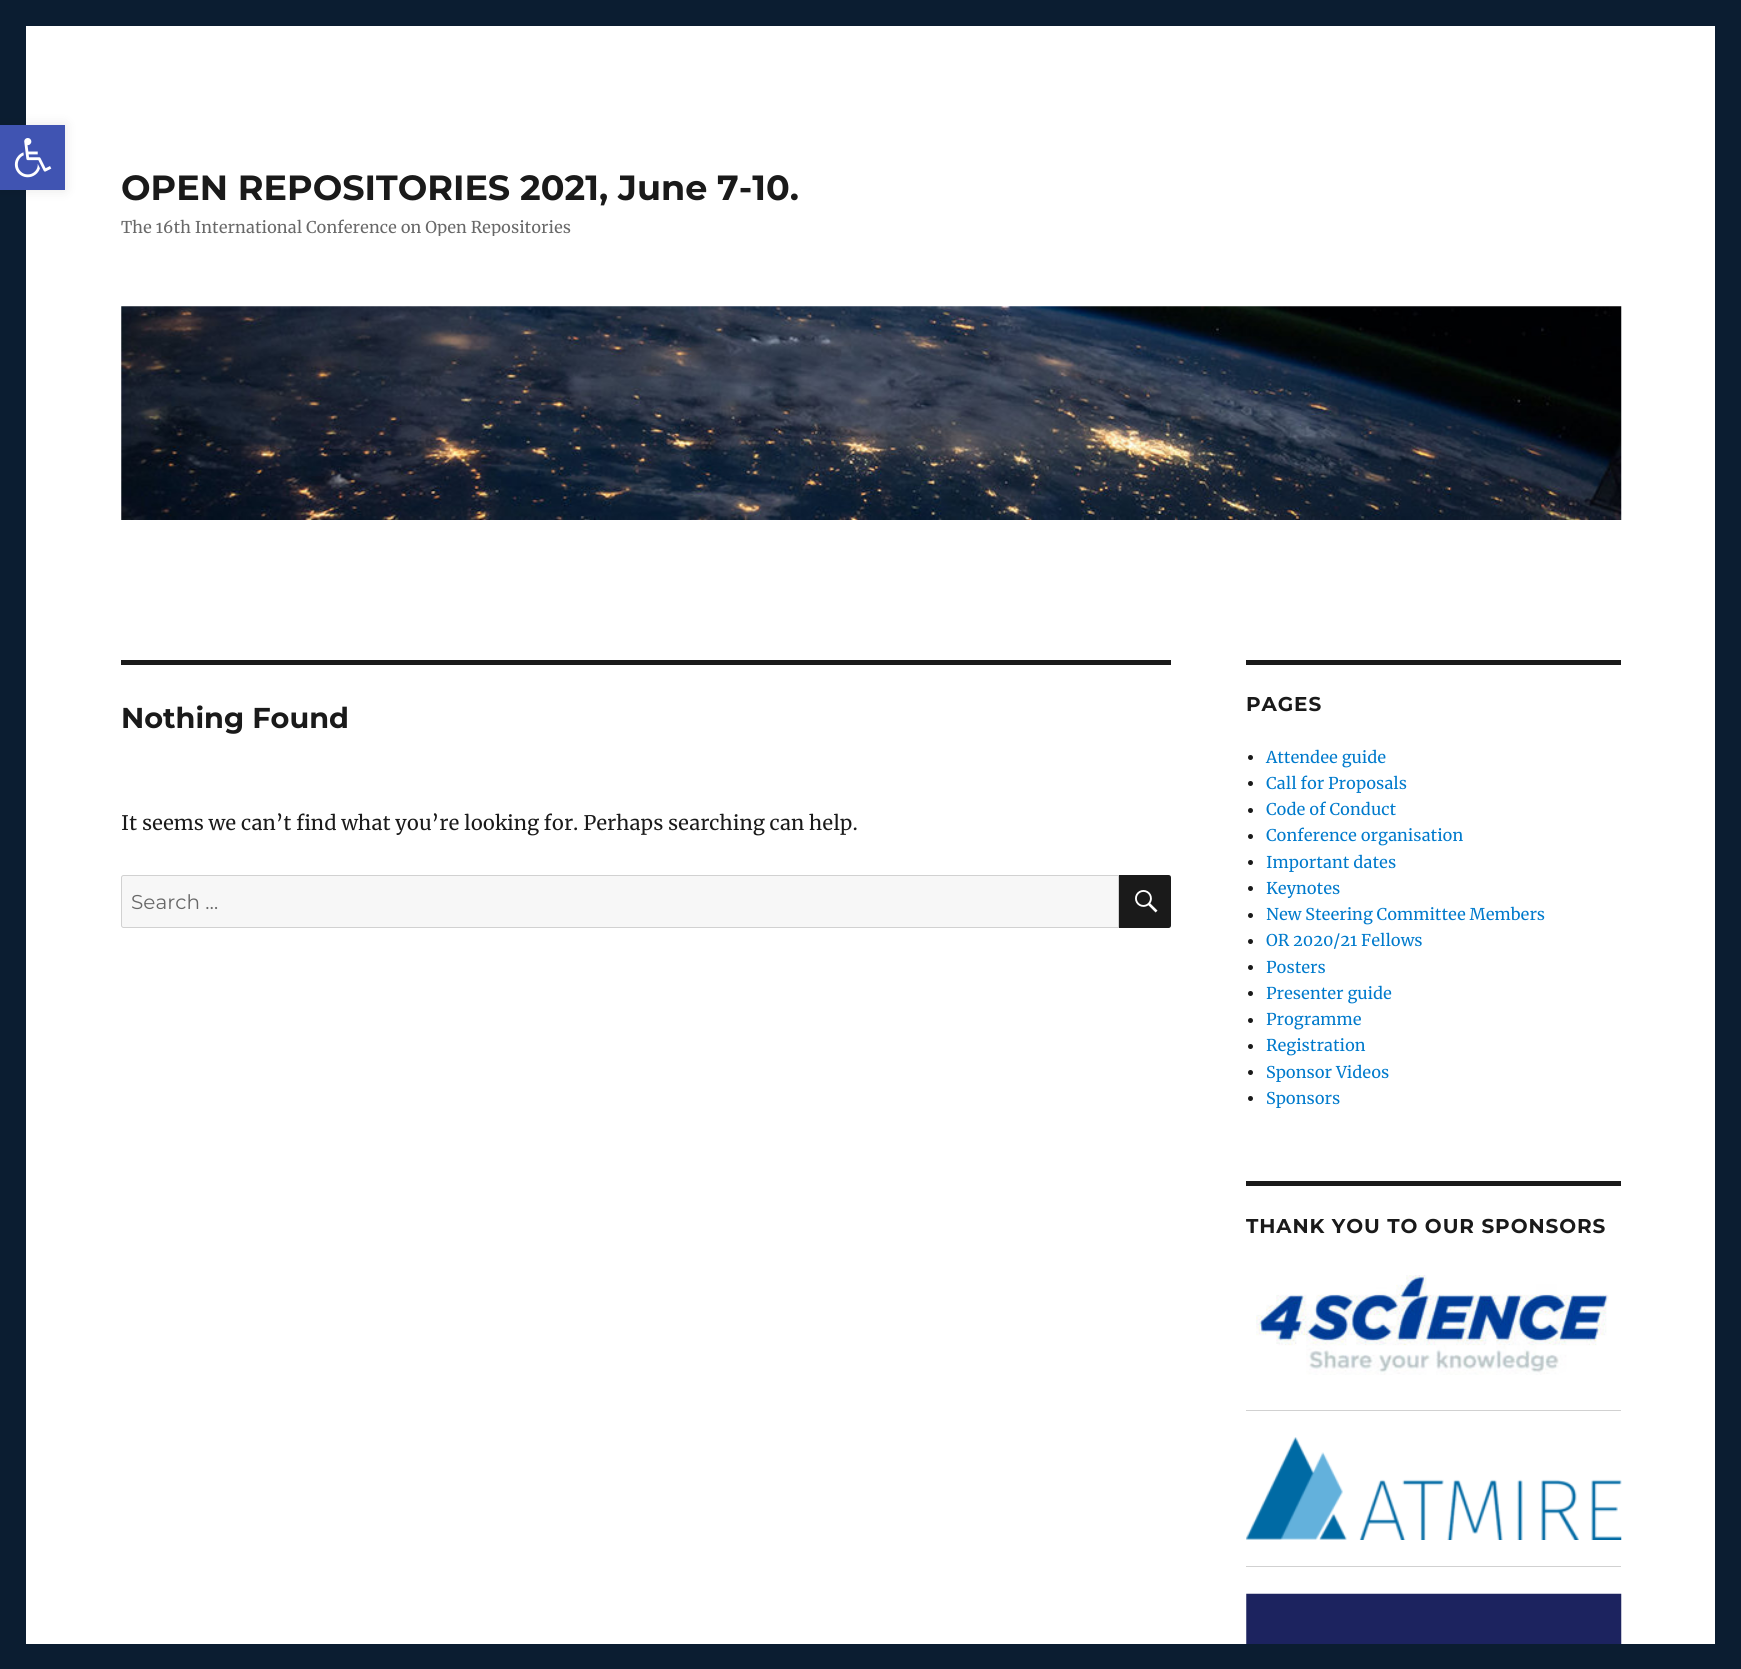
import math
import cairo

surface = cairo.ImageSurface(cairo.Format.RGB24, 1741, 1669)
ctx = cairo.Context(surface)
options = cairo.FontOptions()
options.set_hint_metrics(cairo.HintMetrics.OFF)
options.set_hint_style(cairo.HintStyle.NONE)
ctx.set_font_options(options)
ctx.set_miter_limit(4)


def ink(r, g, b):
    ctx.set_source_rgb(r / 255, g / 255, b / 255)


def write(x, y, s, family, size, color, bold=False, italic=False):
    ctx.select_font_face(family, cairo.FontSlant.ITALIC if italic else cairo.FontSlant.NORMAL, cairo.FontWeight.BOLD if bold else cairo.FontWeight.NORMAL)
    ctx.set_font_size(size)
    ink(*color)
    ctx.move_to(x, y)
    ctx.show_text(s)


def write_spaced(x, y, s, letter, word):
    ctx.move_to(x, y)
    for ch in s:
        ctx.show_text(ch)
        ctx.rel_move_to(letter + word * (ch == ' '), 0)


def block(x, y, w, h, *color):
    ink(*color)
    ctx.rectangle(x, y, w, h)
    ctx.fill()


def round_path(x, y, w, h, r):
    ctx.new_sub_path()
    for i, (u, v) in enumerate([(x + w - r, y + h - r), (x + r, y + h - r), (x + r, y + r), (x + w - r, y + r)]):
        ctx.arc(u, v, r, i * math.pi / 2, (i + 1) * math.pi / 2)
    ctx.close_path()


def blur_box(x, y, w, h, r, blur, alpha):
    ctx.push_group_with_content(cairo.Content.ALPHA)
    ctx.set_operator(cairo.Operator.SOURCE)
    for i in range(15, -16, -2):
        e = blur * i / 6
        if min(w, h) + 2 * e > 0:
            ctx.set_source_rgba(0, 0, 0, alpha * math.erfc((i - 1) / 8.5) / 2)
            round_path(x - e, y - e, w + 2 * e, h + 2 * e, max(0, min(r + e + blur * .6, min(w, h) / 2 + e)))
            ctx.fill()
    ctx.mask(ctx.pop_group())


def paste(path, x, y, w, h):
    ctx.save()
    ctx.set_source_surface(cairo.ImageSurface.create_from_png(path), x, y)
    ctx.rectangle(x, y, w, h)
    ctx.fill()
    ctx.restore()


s1 = dict(family="Montserrat Thin", size=35, color=(26, 26, 26))
s2 = dict(family="Merriweather", size=16.25, color=(104, 104, 104))
s3 = dict(family="Montserrat Thin", size=28.75, color=(26, 26, 26))
s4 = dict(family="Merriweather", size=20, color=(26, 26, 26))
s5 = dict(family="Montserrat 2 Thin", size=20, color=(104, 104, 104))
s6 = dict(family="Merriweather", size=16.25, color=(0, 122, 204))

ink(11, 29, 49)
ctx.paint()
block(26, 26, 1689, 1618, 255, 255, 255)
ink(0, 0, 0)
blur_box(0, 125, 65, 65, 0, 6, 0.1)
block(0, 125, 65, 65, 64, 84, 178)
paste("pic1.png", 14, 138, 38, 40)
write(121, 200, "OPEN REPOSITORIES 2021, June 7-10.", **s1)
ctx.save()
ctx.rectangle(121, 166, 678, 70)
ctx.clip()
write(121, 233, "The 16th International Conference on Open Repositories", **s2)
ctx.restore()
paste("pic2.png", 121, 306, 1501, 214)
block(121, 660, 1050, 5, 26, 26, 26)
write(121, 728, "Nothing Found", **s3)
write(121, 830, "It seems we can’t find what you’re looking for. Perhaps searching can help.", **s4)
ink(247, 247, 247)
ctx.new_path()
ctx.move_to(123.5, 875.5)
ctx.line_to(1118.5, 875.5)
ctx.line_to(1118.5, 927.5)
ctx.line_to(123.5, 927.5)
ctx.curve_to(122.5, 927.5, 121.5, 926.5, 121.5, 925.5)
ctx.line_to(121.5, 877.5)
ctx.curve_to(121.5, 876.5, 122.5, 875.5, 123.5, 875.5)
ctx.close_path()
ctx.fill_preserve()
ink(209, 209, 209)
ctx.set_line_width(1)
ctx.stroke()
write(131, 909, "Search …", **s5)
ink(26, 26, 26)
ctx.new_path()
ctx.move_to(1119, 875)
ctx.line_to(1168.5, 875)
ctx.curve_to(1170, 875, 1171, 876, 1171, 877.5)
ctx.line_to(1171, 925.5)
ctx.curve_to(1171, 927, 1170, 928, 1168.5, 928)
ctx.line_to(1119, 928)
ctx.close_path()
ctx.fill()
paste("pic3.png", 1135, 890, 23, 23)
block(1246, 660, 375, 5, 26, 26, 26)
ctx.select_font_face("Montserrat Thin")
write_spaced(1246, 711, "PAGES", 0.9, 0)
ctx.new_path()
ctx.arc(1250.5, 757.5, 2.5, 0, 2 * math.pi)
ctx.fill()
write(1266, 763, "Attendee guide", **s6)
ink(26, 26, 26)
ctx.new_path()
ctx.arc(1250.5, 783.5, 2.5, 0, 2 * math.pi)
ctx.fill()
write(1266, 789, "Call for Proposals", **s6)
ink(26, 26, 26)
ctx.new_path()
ctx.arc(1250.5, 810.5, 2.5, 0, 2 * math.pi)
ctx.fill()
write(1266, 815, "Code of Conduct", **s6)
ink(26, 26, 26)
ctx.new_path()
ctx.arc(1250.5, 836.5, 2.5, 0, 2 * math.pi)
ctx.fill()
write(1266, 841, "Conference organisation", **s6)
ink(26, 26, 26)
ctx.new_path()
ctx.arc(1250.5, 862.5, 2.5, 0, 2 * math.pi)
ctx.fill()
write(1266, 868, "Important dates", **s6)
ink(26, 26, 26)
ctx.new_path()
ctx.arc(1250.5, 888.5, 2.5, 0, 2 * math.pi)
ctx.fill()
write(1266, 894, "Keynotes", **s6)
ink(26, 26, 26)
ctx.new_path()
ctx.arc(1250.5, 915.5, 2.5, 0, 2 * math.pi)
ctx.fill()
write(1266, 920, "New Steering Committee Members", **s6)
ink(26, 26, 26)
ctx.new_path()
ctx.arc(1250.5, 941.5, 2.5, 0, 2 * math.pi)
ctx.fill()
write(1266, 946, "OR 2020/21 Fellows", **s6)
ink(26, 26, 26)
ctx.new_path()
ctx.arc(1250.5, 967.5, 2.5, 0, 2 * math.pi)
ctx.fill()
write(1266, 973, "Posters", **s6)
ink(26, 26, 26)
ctx.new_path()
ctx.arc(1250.5, 993.5, 2.5, 0, 2 * math.pi)
ctx.fill()
write(1266, 999, "Presenter guide", **s6)
ink(26, 26, 26)
ctx.new_path()
ctx.arc(1250.5, 1020.5, 2.5, 0, 2 * math.pi)
ctx.fill()
write(1266, 1025, "Programme", **s6)
ink(26, 26, 26)
ctx.new_path()
ctx.arc(1250.5, 1046.5, 2.5, 0, 2 * math.pi)
ctx.fill()
write(1266, 1051, "Registration", **s6)
ink(26, 26, 26)
ctx.new_path()
ctx.arc(1250.5, 1072.5, 2.5, 0, 2 * math.pi)
ctx.fill()
write(1266, 1078, "Sponsor Videos", **s6)
ink(26, 26, 26)
ctx.new_path()
ctx.arc(1250.5, 1098.5, 2.5, 0, 2 * math.pi)
ctx.fill()
write(1266, 1104, "Sponsors", **s6)
block(1246, 1181, 375, 5, 26, 26, 26)
ctx.select_font_face("Montserrat Thin")
ctx.set_font_size(20)
write_spaced(1246, 1233, "THANK YOU TO OUR SPONSORS", 0.9, 0)
paste("pic4.png", 1256, 1275, 353, 100)
block(1246, 1410, 375, 1, 209, 209, 209)
paste("pic5.png", 1246, 1437, 376, 103)
block(1246, 1566, 375, 1, 209, 209, 209)
paste("pic6.png", 1246, 1593, 376, 51)
surface.write_to_png("screenshot.png")
